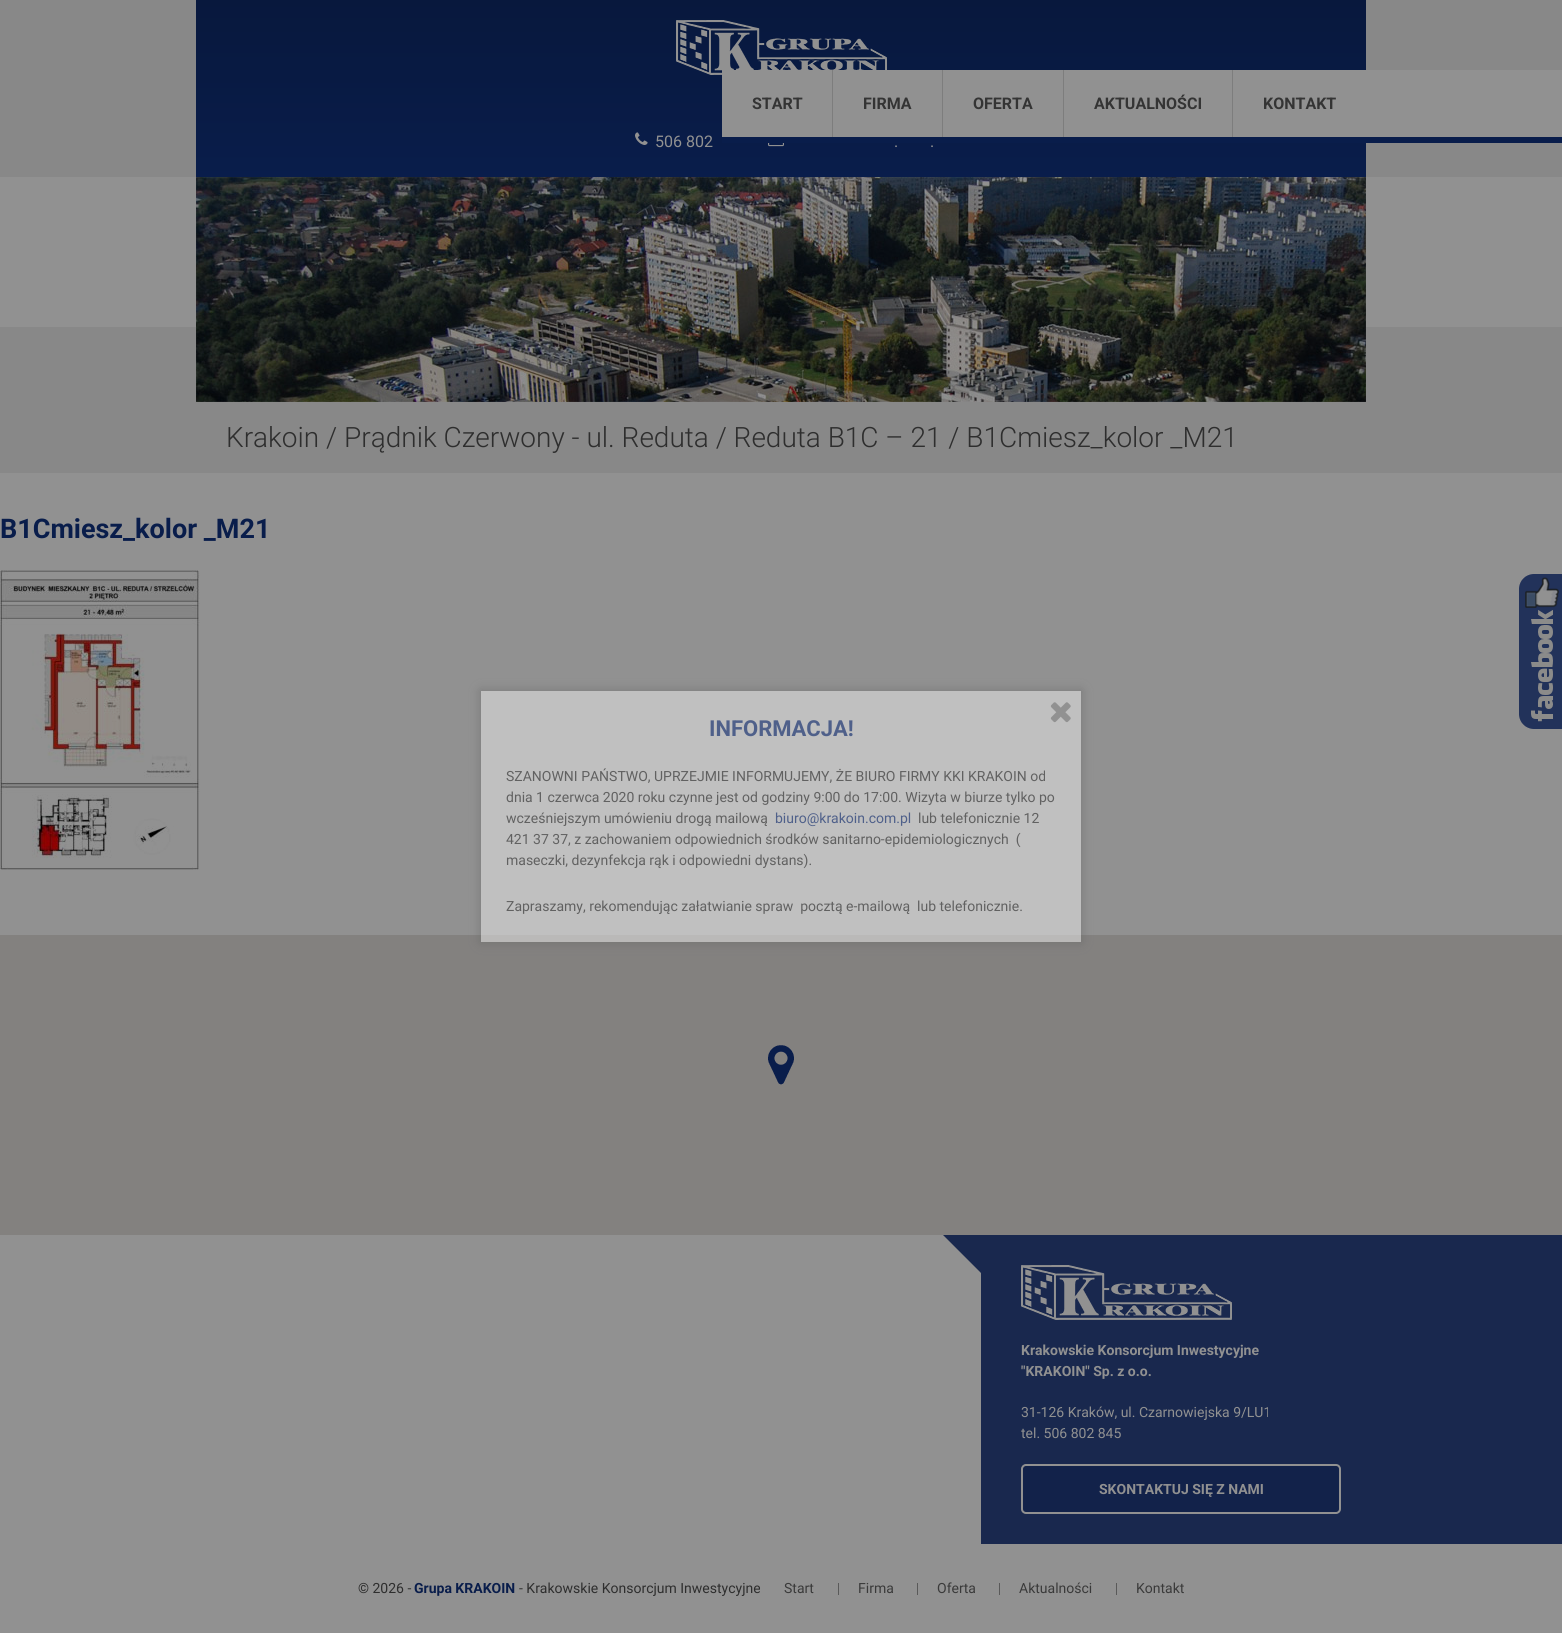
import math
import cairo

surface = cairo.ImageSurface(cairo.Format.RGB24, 1562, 1633)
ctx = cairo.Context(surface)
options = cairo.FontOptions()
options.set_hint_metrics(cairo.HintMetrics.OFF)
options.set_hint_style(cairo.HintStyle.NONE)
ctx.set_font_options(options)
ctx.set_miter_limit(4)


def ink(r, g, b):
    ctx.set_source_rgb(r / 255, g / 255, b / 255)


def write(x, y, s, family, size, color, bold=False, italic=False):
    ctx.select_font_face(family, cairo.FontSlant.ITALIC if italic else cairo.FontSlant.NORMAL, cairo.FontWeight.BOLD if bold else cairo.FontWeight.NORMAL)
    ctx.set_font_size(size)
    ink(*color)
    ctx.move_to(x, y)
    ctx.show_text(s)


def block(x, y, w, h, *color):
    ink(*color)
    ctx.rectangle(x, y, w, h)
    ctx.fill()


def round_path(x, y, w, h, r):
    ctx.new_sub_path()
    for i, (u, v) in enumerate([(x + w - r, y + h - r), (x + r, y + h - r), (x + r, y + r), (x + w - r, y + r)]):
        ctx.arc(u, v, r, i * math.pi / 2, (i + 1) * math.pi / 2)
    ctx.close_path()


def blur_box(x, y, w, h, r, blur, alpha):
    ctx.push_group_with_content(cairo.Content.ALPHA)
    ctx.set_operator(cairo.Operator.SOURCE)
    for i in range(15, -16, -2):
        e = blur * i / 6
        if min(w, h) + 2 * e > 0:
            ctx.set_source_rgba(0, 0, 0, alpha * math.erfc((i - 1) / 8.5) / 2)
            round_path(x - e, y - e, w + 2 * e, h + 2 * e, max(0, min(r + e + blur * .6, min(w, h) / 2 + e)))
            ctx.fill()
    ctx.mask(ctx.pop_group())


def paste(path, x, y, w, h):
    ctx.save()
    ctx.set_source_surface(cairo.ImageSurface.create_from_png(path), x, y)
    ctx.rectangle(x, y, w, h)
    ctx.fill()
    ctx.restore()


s1 = dict(family="Roboto", size=16, color=(52, 52, 52), bold=True)
s2 = dict(family="Roboto", size=16, color=(145, 145, 145))
s3 = dict(family="Roboto Light", size=28, color=(46, 46, 46))
s4 = dict(family="Roboto", size=27, color=(9, 29, 75), bold=True)
s5 = dict(family="Roboto", size=14, color=(145, 145, 145), bold=True)
s6 = dict(family="Roboto", size=14, color=(145, 145, 145))
s7 = dict(family="Roboto", size=14, color=(46, 46, 46))
s8 = dict(family="Roboto", size=14, color=(9, 29, 75), bold=True)
s9 = dict(family="Roboto", size=14, color=(58, 58, 58))
s10 = dict(family="Roboto", size=22, color=(79, 96, 138), bold=True)
s11 = dict(family="Roboto", size=14, color=(97, 97, 97))
s12 = dict(family="Roboto", size=14, color=(79, 96, 138))

ink(145, 145, 145)
ctx.paint()
block(481, 691, 600, 244, 192, 192, 192)
block(0, 0, 1562, 177, 136, 136, 136)
gradient = cairo.LinearGradient(781, 0, 781, 177)
gradient.add_color_stop_rgba(0, 0.031, 0.094, 0.239, 1)
gradient.add_color_stop_rgba(1, 0.035, 0.114, 0.294, 1)
ctx.set_source(gradient)
ctx.rectangle(196, 0, 1170, 177)
ctx.fill()
paste("pic1.png", 676, 20, 211, 55)
block(722, 70, 840, 67, 145, 145, 145)
block(722, 137, 840, 6, 9, 29, 75)
block(832, 70, 1, 67, 125, 125, 125)
write(752, 109, "START", **s1)
block(942, 70, 1, 67, 125, 125, 125)
write(863, 109, "FIRMA", **s1)
block(1063, 70, 1, 67, 125, 125, 125)
write(973, 109, "OFERTA", **s1)
block(1232, 70, 1, 67, 125, 125, 125)
write(1094, 109, "AKTUALNOŚCI", **s1)
write(1263, 109, "KONTAKT", **s1)
paste("pic2.png", 635, 132, 13, 13)
write(655, 147, "506 802", **s2)
paste("pic3.png", 768, 143, 16, 4)
write(894, 147, ".", **s2)
write(930, 147, ".", **s2)
paste("pic4.png", 196, 177, 1170, 225)
block(0, 327, 196, 75, 136, 136, 136)
block(1366, 327, 196, 75, 136, 136, 136)
block(0, 402, 1562, 71, 136, 136, 136)
write(226, 447, "Krakoin / Prądnik Czerwony - ul. Reduta / Reduta B1C – 21 / B1Cmiesz_kolor _M21", **s3)
write(0, 538, "B1Cmiesz_kolor _M21", **s4)
paste("pic5.png", 0, 570, 200, 300)
block(0, 935, 1562, 300, 131, 129, 127)
block(481, 935, 600, 7, 186, 185, 184)
paste("pic6.png", 768, 1045, 26, 40)
block(981, 1235, 581, 309, 25, 40, 78)
ctx.new_path()
ctx.move_to(981, 1235)
ctx.line_to(981, 1273)
ctx.line_to(943, 1235)
ctx.close_path()
ctx.fill()
paste("pic7.png", 1021, 1265, 211, 55)
write(1021, 1355, "Krakowskie Konsorcjum Inwestycyjne", **s5)
write(1021, 1376, "\"KRAKOIN\" Sp. z o.o.", **s5)
write(1021, 1417, "31-126 Kraków, ul. Czarnowiejska 9/LU1", **s6)
write(1021, 1438, "tel. 506 802 845", **s6)
ink(18, 34, 74)
round_path(1022, 1465, 318, 48, 4)
ctx.fill_preserve()
ink(145, 145, 145)
ctx.stroke()
write(1099, 1494, "SKONTAKTUJ SIĘ Z NAMI", **s5)
write(358, 1593, "© 2026 -", **s7)
write(414, 1593, "Grupa KRAKOIN", **s8)
write(519, 1593, "- Krakowskie Konsorcjum Inwestycyjne", **s7)
write(784, 1593, "Start", **s9)
block(838, 1583, 1, 12, 89, 89, 89)
write(858, 1593, "Firma", **s9)
block(917, 1583, 1, 12, 89, 89, 89)
write(937, 1593, "Oferta", **s9)
block(999, 1583, 1, 12, 89, 89, 89)
write(1019, 1593, "Aktualności", **s9)
block(1116, 1583, 1, 12, 89, 89, 89)
write(1136, 1593, "Kontakt", **s9)
paste("pic8.png", 1519, 574, 43, 155)
ctx.save()
ctx.set_fill_rule(cairo.FillRule.EVEN_ODD)
ctx.new_path()
ctx.move_to(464, 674)
ctx.line_to(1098, 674)
ctx.line_to(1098, 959)
ctx.line_to(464, 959)
ctx.close_path()
ctx.move_to(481, 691)
ctx.line_to(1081, 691)
ctx.line_to(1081, 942)
ctx.line_to(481, 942)
ctx.close_path()
ctx.clip()
ink(102, 102, 102)
blur_box(480, 690, 602, 253, 0, 5, 0.51)
ctx.restore()
paste("pic9.png", 1050, 702, 21, 21)
write(709, 736, "INFORMACJA!", **s10)
write(506, 781, "SZANOWNI PAŃSTWO, UPRZEJMIE INFORMUJEMY, ŻE BIURO FIRMY KKI KRAKOIN od", **s11)
write(506, 802, "dnia 1 czerwca 2020 roku czynne jest od godziny 9:00 do 17:00. Wizyta w biurze tylko po", **s11)
write(506, 823, "wcześniejszym umówieniu drogą mailową", **s11)
write(775, 823, "biuro@krakoin.com.pl", **s12)
write(918, 823, "lub telefonicznie 12", **s11)
write(506, 844, "421 37 37, z zachowaniem odpowiednich środków sanitarno-epidemiologicznych  (", **s11)
write(506, 865, "maseczki, dezynfekcja rąk i odpowiedni dystans).", **s11)
write(506, 911, "Zapraszamy, rekomendując załatwianie spraw  pocztą e-mailową  lub telefonicznie.", **s11)
surface.write_to_png("screenshot.png")
